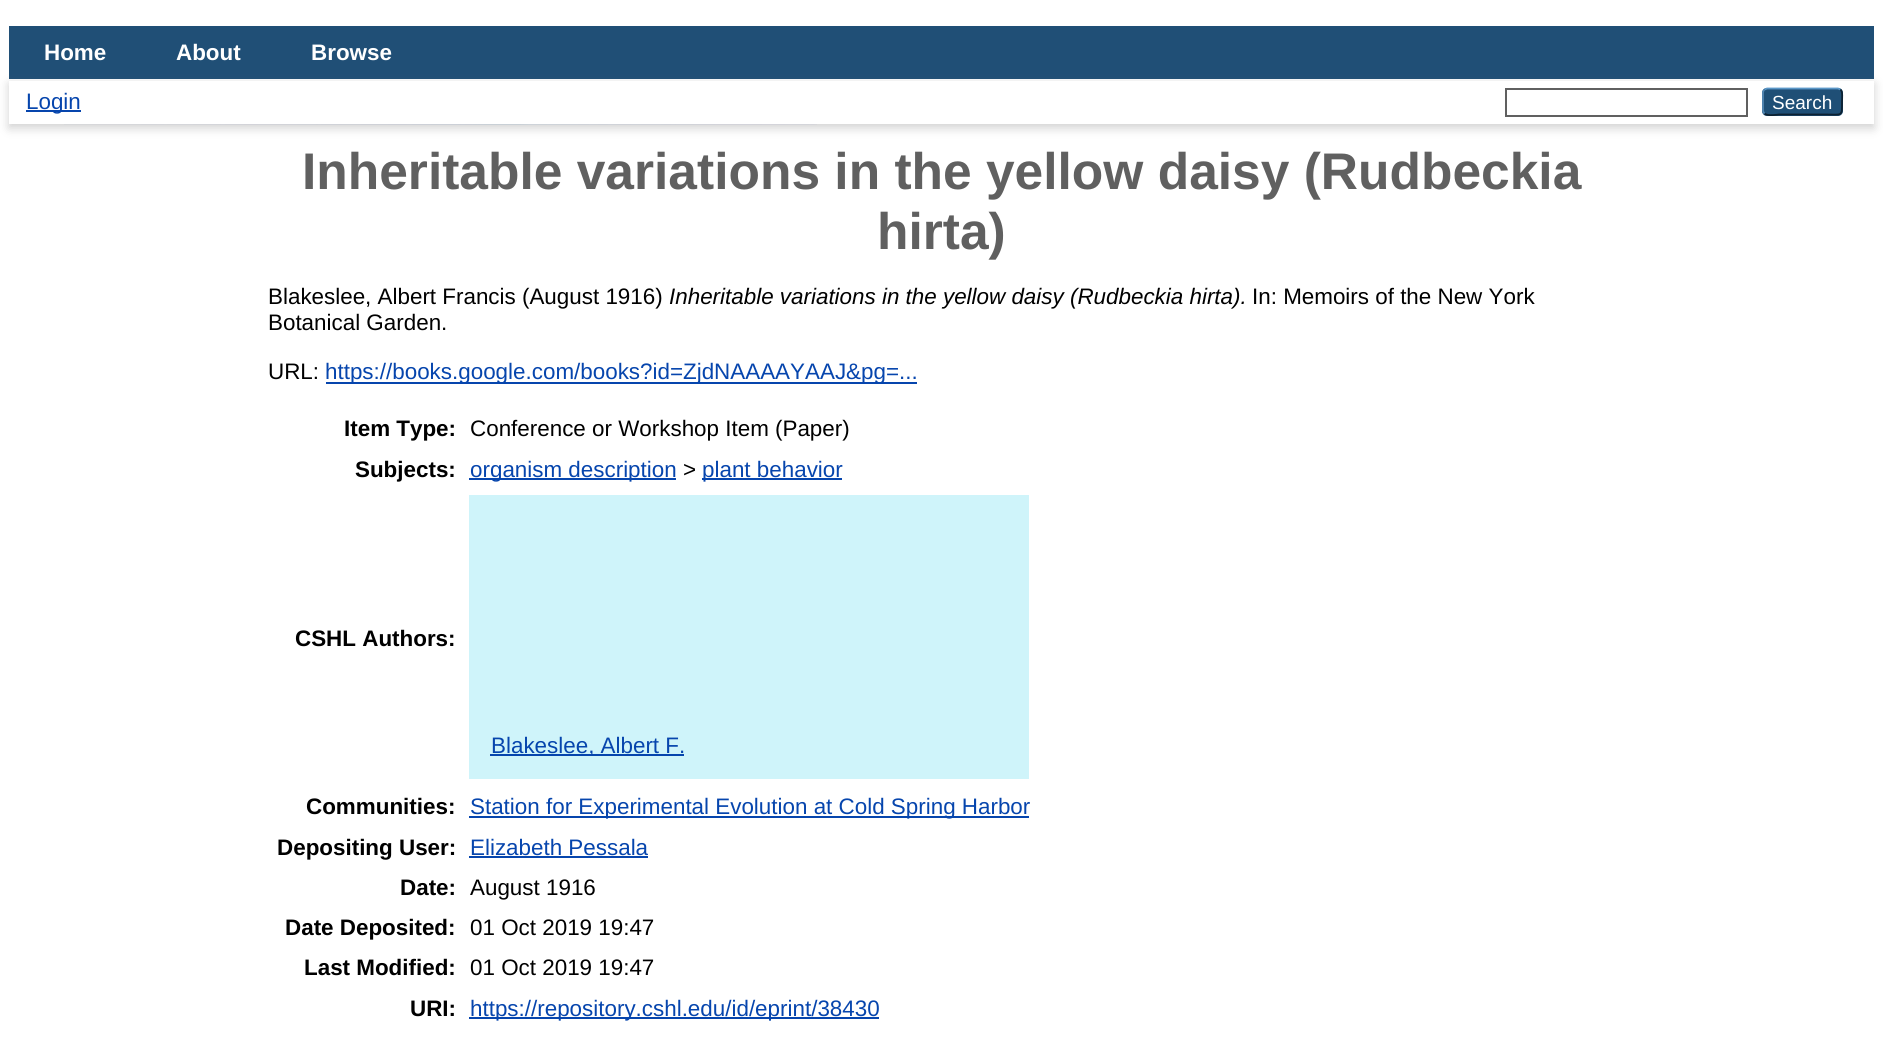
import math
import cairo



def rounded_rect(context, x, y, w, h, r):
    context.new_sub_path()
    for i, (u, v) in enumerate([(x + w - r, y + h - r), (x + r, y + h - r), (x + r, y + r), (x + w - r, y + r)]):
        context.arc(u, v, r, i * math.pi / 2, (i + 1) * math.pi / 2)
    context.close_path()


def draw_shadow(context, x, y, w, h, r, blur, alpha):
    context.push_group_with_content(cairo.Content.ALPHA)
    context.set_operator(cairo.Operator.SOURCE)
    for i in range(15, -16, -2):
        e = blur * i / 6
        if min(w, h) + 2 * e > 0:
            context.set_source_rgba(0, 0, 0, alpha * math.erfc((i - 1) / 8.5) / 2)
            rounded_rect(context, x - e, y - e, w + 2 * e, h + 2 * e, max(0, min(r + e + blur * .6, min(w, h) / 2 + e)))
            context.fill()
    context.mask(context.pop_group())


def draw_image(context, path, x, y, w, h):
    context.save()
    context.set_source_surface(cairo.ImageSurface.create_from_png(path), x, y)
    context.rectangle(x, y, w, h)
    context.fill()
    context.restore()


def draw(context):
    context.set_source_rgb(1, 1, 1)
    context.paint()
    draw_image(context, "images/1.png", 64, 124, 753, 1)
    context.set_source_rgb(32 / 255, 79 / 255, 118 / 255)
    context.rectangle(9, 26, 1865, 53)
    context.fill()
    context.set_source_rgb(100 / 255, 100 / 255, 100 / 255)
    draw_shadow(context, 9, 84, 1865, 44, 0, 5, 0.3)
    context.set_source_rgb(1, 1, 1)
    context.rectangle(9, 81, 1865, 43)
    context.fill()
    context.set_source_rgb(6 / 255, 69 / 255, 173 / 255)
    context.rectangle(26, 110, 55, 2)
    context.fill()
    context.rectangle(1506, 89, 241, 27)
    context.set_source_rgb(96 / 255, 96 / 255, 96 / 255)
    context.stroke()
    context.set_source_rgb(31 / 255, 79 / 255, 118 / 255)
    rounded_rect(context, 1762, 88, 81, 28, 5)
    context.fill()
    context.new_path()
    context.move_to(1764.5, 89.5)
    context.line_to(1767, 88.5)
    context.line_to(1838, 88.5)
    context.line_to(1840.5, 89.5)
    context.set_source_rgb(91 / 255, 151 / 255, 199 / 255)
    context.set_line_width(1.8)
    context.stroke()
    context.new_path()
    context.move_to(1840.5, 89.5)
    context.curve_to(1843, 92, 1842, 98.5, 1842, 101.5)
    context.curve_to(1842, 117, 1842.5, 114.5, 1826, 114.5)
    context.line_to(1779, 114.5)
    context.curve_to(1778.5, 114.5, 1767.5, 116.5, 1764.5, 113.5)
    context.set_source_rgb(13 / 255, 33 / 255, 49 / 255)
    context.stroke()
    context.new_path()
    context.move_to(1764.5, 113.5)
    context.curve_to(1763.5, 112.5, 1763, 111.5, 1763, 110)
    context.line_to(1763, 93)
    context.curve_to(1763, 91.5, 1763.5, 90.5, 1764.5, 89.5)
    context.set_source_rgb(82 / 255, 135 / 255, 179 / 255)
    context.stroke()
    context.set_source_rgb(6 / 255, 69 / 255, 173 / 255)
    context.rectangle(326, 382, 591, 2)
    context.fill()
    context.rectangle(469, 478, 207, 2)
    context.fill()
    context.rectangle(702, 478, 140, 2)
    context.fill()
    context.set_source_rgb(207 / 255, 244 / 255, 250 / 255)
    context.rectangle(469, 495, 560, 284)
    context.fill()
    context.set_source_rgb(6 / 255, 69 / 255, 173 / 255)
    context.rectangle(490, 754, 194, 2)
    context.fill()
    context.rectangle(469, 816, 560, 2)
    context.fill()
    context.rectangle(469, 856, 179, 2)
    context.fill()
    context.rectangle(469, 1017, 410, 2)
    context.fill()
    context.select_font_face("Liberation Sans", cairo.FontSlant.NORMAL, cairo.FontWeight.BOLD)
    context.set_font_size(22.4)
    context.set_source_rgb(1, 1, 1)
    context.move_to(44, 60)
    context.show_text("Home")
    context.move_to(176, 60)
    context.show_text("About")
    context.move_to(311, 60)
    context.show_text("Browse")
    context.select_font_face("Liberation Sans")
    context.set_source_rgb(6 / 255, 69 / 255, 173 / 255)
    context.move_to(26, 109)
    context.show_text("Login")
    context.set_font_size(19)
    context.set_source_rgb(1, 1, 1)
    context.move_to(1772, 109)
    context.show_text("Search")
    context.select_font_face("Liberation Sans", cairo.FontSlant.NORMAL, cairo.FontWeight.BOLD)
    context.set_font_size(51.5)
    context.set_source_rgb(96 / 255, 96 / 255, 96 / 255)
    context.move_to(302, 189)
    context.show_text("Inheritable variations in the yellow daisy (Rudbeckia")
    context.move_to(877, 249)
    context.show_text("hirta)")
    context.select_font_face("Liberation Sans")
    context.set_font_size(22.4)
    context.set_source_rgb(0, 0, 0)
    context.move_to(268, 304)
    context.show_text("Blakeslee, Albert Francis (August 1916)")
    context.select_font_face("Liberation Sans", cairo.FontSlant.ITALIC)
    context.move_to(669, 304)
    context.show_text("Inheritable variations in the yellow daisy (Rudbeckia hirta).")
    context.select_font_face("Liberation Sans")
    context.move_to(1252, 304)
    context.show_text("In: Memoirs of the New York")
    context.move_to(268, 330)
    context.show_text("Botanical Garden.")
    context.move_to(268, 379)
    context.show_text("URL:")
    context.set_source_rgb(6 / 255, 69 / 255, 173 / 255)
    context.move_to(325, 379)
    context.show_text("https://books.google.com/books?id=ZjdNAAAAYAAJ&pg=...")
    context.select_font_face("Liberation Sans", cairo.FontSlant.NORMAL, cairo.FontWeight.BOLD)
    context.set_source_rgb(0, 0, 0)
    context.move_to(344, 436)
    context.show_text("Item Type:")
    context.select_font_face("Liberation Sans")
    context.move_to(470, 436)
    context.show_text("Conference or Workshop Item (Paper)")
    context.select_font_face("Liberation Sans", cairo.FontSlant.NORMAL, cairo.FontWeight.BOLD)
    context.move_to(355, 477)
    context.show_text("Subjects:")
    context.select_font_face("Liberation Sans")
    context.set_source_rgb(6 / 255, 69 / 255, 173 / 255)
    context.move_to(470, 477)
    context.show_text("organism description")
    context.set_source_rgb(0, 0, 0)
    context.move_to(683, 477)
    context.show_text(">")
    context.set_source_rgb(6 / 255, 69 / 255, 173 / 255)
    context.move_to(702, 477)
    context.show_text("plant behavior")
    context.select_font_face("Liberation Sans", cairo.FontSlant.NORMAL, cairo.FontWeight.BOLD)
    context.set_source_rgb(0, 0, 0)
    context.move_to(295, 646)
    context.show_text("CSHL Authors:")
    context.select_font_face("Liberation Sans")
    context.set_source_rgb(6 / 255, 69 / 255, 173 / 255)
    context.move_to(491, 753)
    context.show_text("Blakeslee, Albert F.")
    context.select_font_face("Liberation Sans", cairo.FontSlant.NORMAL, cairo.FontWeight.BOLD)
    context.set_source_rgb(0, 0, 0)
    context.move_to(306, 814)
    context.show_text("Communities:")
    context.select_font_face("Liberation Sans")
    context.set_source_rgb(6 / 255, 69 / 255, 173 / 255)
    context.move_to(470, 814)
    context.show_text("Station for Experimental Evolution at Cold Spring Harbor")
    context.select_font_face("Liberation Sans", cairo.FontSlant.NORMAL, cairo.FontWeight.BOLD)
    context.set_source_rgb(0, 0, 0)
    context.move_to(277, 855)
    context.show_text("Depositing User:")
    context.select_font_face("Liberation Sans")
    context.set_source_rgb(6 / 255, 69 / 255, 173 / 255)
    context.move_to(470, 855)
    context.show_text("Elizabeth Pessala")
    context.select_font_face("Liberation Sans", cairo.FontSlant.NORMAL, cairo.FontWeight.BOLD)
    context.set_source_rgb(0, 0, 0)
    context.move_to(400, 895)
    context.show_text("Date:")
    context.select_font_face("Liberation Sans")
    context.move_to(470, 895)
    context.show_text("August 1916")
    context.select_font_face("Liberation Sans", cairo.FontSlant.NORMAL, cairo.FontWeight.BOLD)
    context.move_to(285, 935)
    context.show_text("Date Deposited:")
    context.select_font_face("Liberation Sans")
    context.move_to(470, 935)
    context.show_text("01 Oct 2019 19:47")
    context.select_font_face("Liberation Sans", cairo.FontSlant.NORMAL, cairo.FontWeight.BOLD)
    context.move_to(304, 975)
    context.show_text("Last Modified:")
    context.select_font_face("Liberation Sans")
    context.move_to(470, 975)
    context.show_text("01 Oct 2019 19:47")
    context.select_font_face("Liberation Sans", cairo.FontSlant.NORMAL, cairo.FontWeight.BOLD)
    context.move_to(410, 1016)
    context.show_text("URI:")
    context.select_font_face("Liberation Sans")
    context.set_source_rgb(6 / 255, 69 / 255, 173 / 255)
    context.move_to(470, 1016)
    context.show_text("https://repository.cshl.edu/id/eprint/38430")


surface = cairo.ImageSurface(cairo.Format.RGB24, 1883, 1060)
context = cairo.Context(surface)
options = cairo.FontOptions()
options.set_hint_metrics(cairo.HintMetrics.OFF)
options.set_hint_style(cairo.HintStyle.NONE)
context.set_font_options(options)
context.set_miter_limit(4)
draw(context)
surface.write_to_png("out.png")
